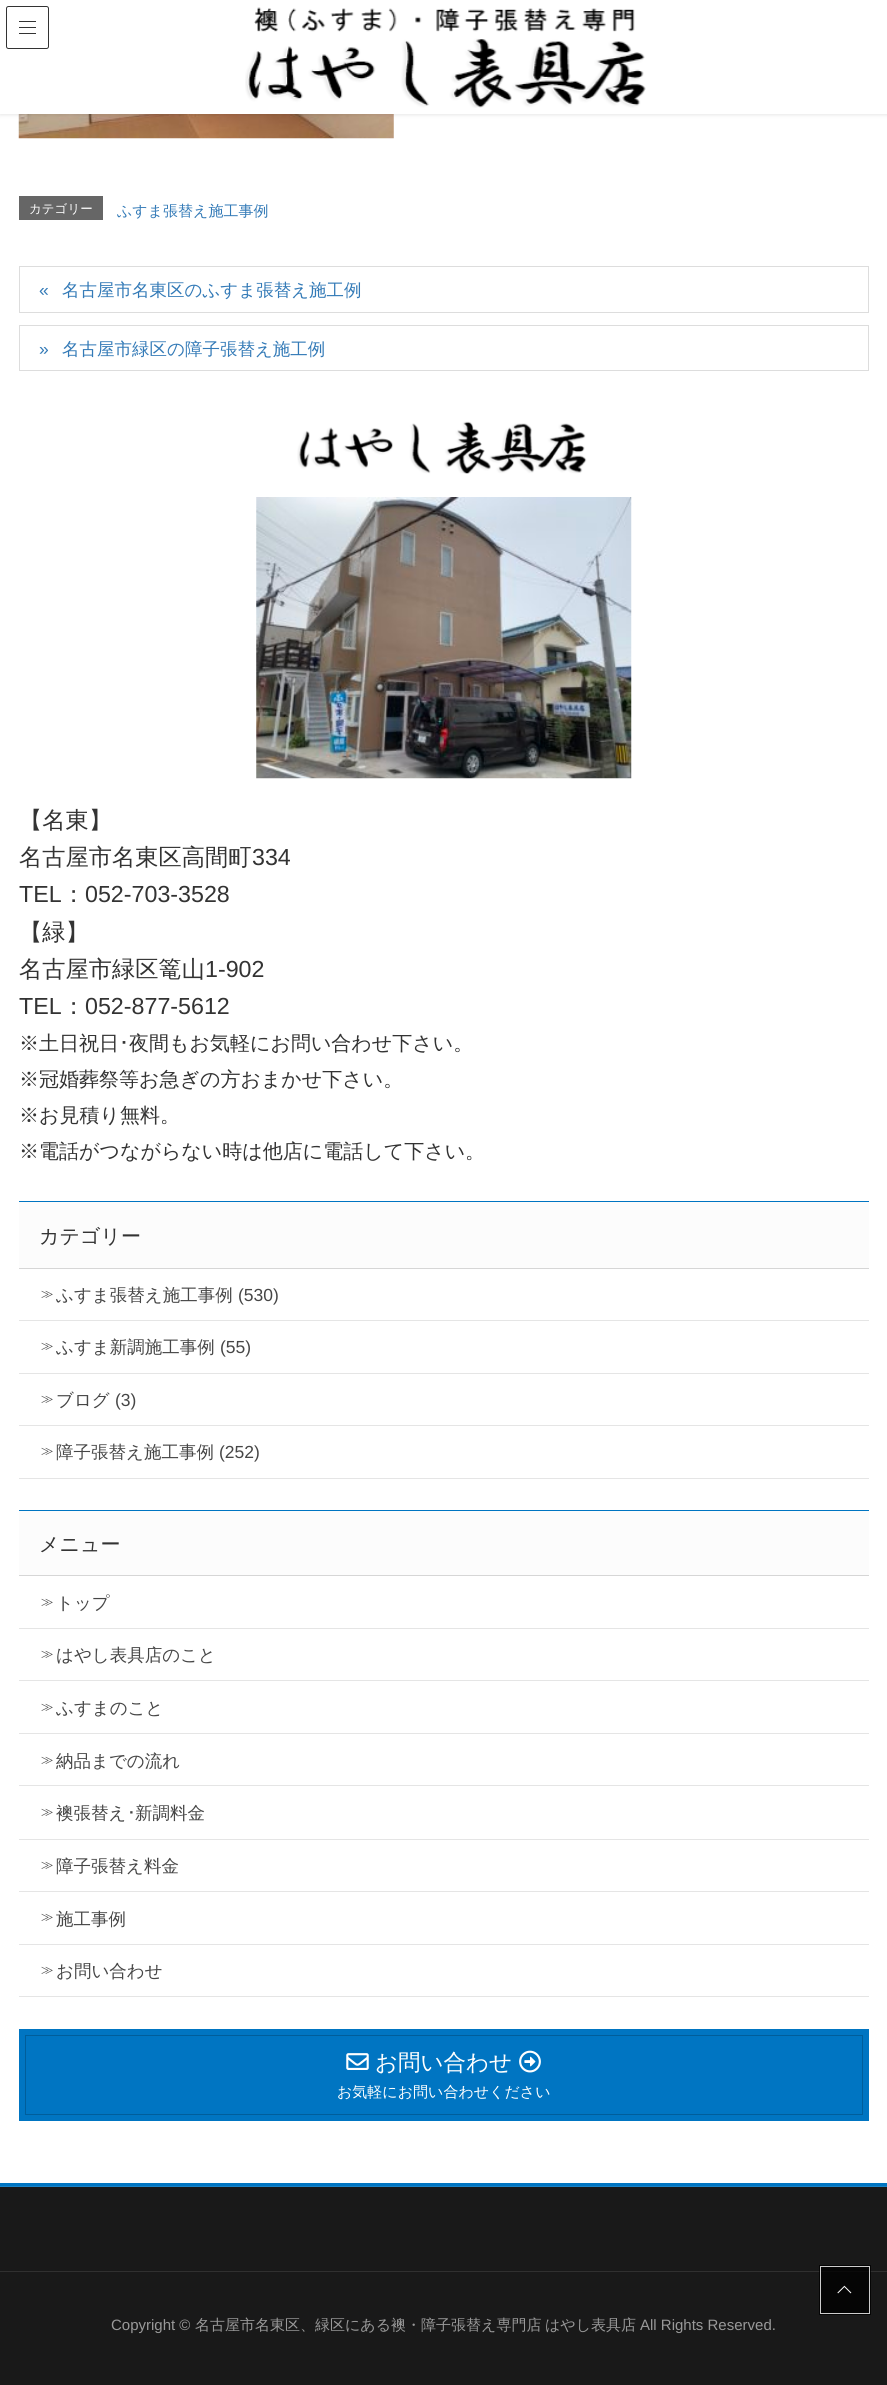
import math
import cairo



def rounded_rect(context, x, y, w, h, r):
    context.new_sub_path()
    for i, (u, v) in enumerate([(x + w - r, y + h - r), (x + r, y + h - r), (x + r, y + r), (x + w - r, y + r)]):
        context.arc(u, v, r, i * math.pi / 2, (i + 1) * math.pi / 2)
    context.close_path()


def draw_shadow(context, x, y, w, h, r, blur, alpha):
    context.push_group_with_content(cairo.Content.ALPHA)
    context.set_operator(cairo.Operator.SOURCE)
    for i in range(15, -16, -2):
        e = blur * i / 6
        if min(w, h) + 2 * e > 0:
            context.set_source_rgba(0, 0, 0, alpha * math.erfc((i - 1) / 8.5) / 2)
            rounded_rect(context, x - e, y - e, w + 2 * e, h + 2 * e, max(0, min(r + e + blur * .6, min(w, h) / 2 + e)))
            context.fill()
    context.mask(context.pop_group())


def draw_image(context, path, x, y, w, h):
    context.save()
    context.set_source_surface(cairo.ImageSurface.create_from_png(path), x, y)
    context.rectangle(x, y, w, h)
    context.fill()
    context.restore()


def draw(context):
    context.set_source_rgb(1, 1, 1)
    context.paint()
    draw_image(context, "images/2.png", 18, 114, 376, 25)
    context.set_source_rgb(0, 0, 0)
    draw_shadow(context, 0, 1, 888, 114, 0, 2, 0.1)
    context.set_source_rgb(1, 1, 1)
    context.rectangle(0, 0, 887, 114)
    context.fill()
    draw_image(context, "images/1.png", 245, 7, 401, 101)
    context.set_source_rgb(51 / 255, 51 / 255, 51 / 255)
    context.rectangle(19, 21, 17, 1)
    context.fill()
    context.rectangle(19, 27, 17, 1)
    context.fill()
    context.rectangle(19, 33, 17, 1)
    context.fill()
    rounded_rect(context, 6.5, 6.5, 42, 42, 2)
    context.set_line_width(1)
    context.stroke()
    context.set_source_rgb(102 / 255, 102 / 255, 102 / 255)
    context.rectangle(19, 196, 84, 24)
    context.fill()
    context.rectangle(19.5, 266.5, 849, 46)
    context.set_source_rgb(221 / 255, 221 / 255, 221 / 255)
    context.stroke()
    context.rectangle(19.5, 325.5, 849, 45)
    context.stroke()
    draw_image(context, "images/3.png", 297, 421, 290, 53)
    draw_image(context, "images/4.png", 256, 497, 376, 282)
    context.set_source_rgb(252 / 255, 252 / 255, 252 / 255)
    context.rectangle(19, 1202, 850, 66)
    context.fill()
    context.set_source_rgb(0, 117 / 255, 194 / 255)
    context.rectangle(19, 1201, 850, 1)
    context.fill()
    context.set_source_rgb(214 / 255, 214 / 255, 214 / 255)
    context.rectangle(19, 1268, 850, 1)
    context.fill()
    context.set_source_rgb(229 / 255, 229 / 255, 229 / 255)
    context.rectangle(19, 1320, 850, 1)
    context.fill()
    context.rectangle(19, 1373, 850, 1)
    context.fill()
    context.rectangle(19, 1425, 850, 1)
    context.fill()
    context.rectangle(19, 1478, 850, 1)
    context.fill()
    context.set_source_rgb(252 / 255, 252 / 255, 252 / 255)
    context.rectangle(19, 1511, 850, 64)
    context.fill()
    context.set_source_rgb(0, 117 / 255, 194 / 255)
    context.rectangle(19, 1510, 850, 1)
    context.fill()
    context.set_source_rgb(214 / 255, 214 / 255, 214 / 255)
    context.rectangle(19, 1575, 850, 1)
    context.fill()
    context.set_source_rgb(229 / 255, 229 / 255, 229 / 255)
    context.rectangle(19, 1628, 850, 1)
    context.fill()
    context.rectangle(19, 1680, 850, 1)
    context.fill()
    context.rectangle(19, 1733, 850, 1)
    context.fill()
    context.rectangle(19, 1785, 850, 1)
    context.fill()
    context.rectangle(19, 1839, 850, 1)
    context.fill()
    context.rectangle(19, 1891, 850, 1)
    context.fill()
    context.rectangle(19, 1944, 850, 1)
    context.fill()
    context.rectangle(19, 1996, 850, 1)
    context.fill()
    context.set_source_rgb(0, 117 / 255, 194 / 255)
    context.rectangle(19, 2029, 850, 92)
    context.fill()
    context.rectangle(25.5, 2035.5, 837, 79)
    context.set_source_rgb(0, 94 / 255, 155 / 255)
    context.stroke()
    draw_image(context, "images/5.png", 346, 2053, 23, 17)
    draw_image(context, "images/6.png", 519, 2050, 22, 23)
    context.set_source_rgb(25 / 255, 25 / 255, 25 / 255)
    context.rectangle(0, 2187, 887, 198)
    context.fill()
    context.set_source_rgb(5 / 255, 5 / 255, 5 / 255)
    context.rectangle(820, 2266, 50, 48)
    context.fill()
    draw_image(context, "images/7.png", 837, 2285, 15, 9)
    context.set_source_rgb(48 / 255, 48 / 255, 48 / 255)
    context.rectangle(0, 2271, 887, 1)
    context.fill()
    context.set_source_rgb(10 / 255, 10 / 255, 10 / 255)
    context.rectangle(820, 2271, 50, 1)
    context.fill()
    context.rectangle(820.5, 2266.5, 49, 47)
    context.set_source_rgba(1, 1, 1, 0.8)
    context.stroke()
    context.rectangle(819.5, 2265.5, 51, 49)
    context.set_source_rgba(0, 0, 0, 0.8)
    context.stroke()
    context.set_source_rgb(0, 117 / 255, 194 / 255)
    context.rectangle(0, 2183, 887, 3)
    context.fill()
    context.set_source_rgb(26 / 255, 131 / 255, 200 / 255)
    context.rectangle(0, 2186, 887, 1)
    context.fill()
    context.select_font_face("WenQuanYi Zen Hei Medium")
    context.set_font_size(12.5)
    context.set_source_rgb(1, 1, 1)
    context.move_to(29, 213)
    context.show_text("カテゴリー")
    context.set_font_size(15)
    context.set_source_rgb(51 / 255, 122 / 255, 183 / 255)
    context.move_to(117, 216)
    context.show_text("ふすま張替え施工事例")
    context.select_font_face("Liberation Sans")
    context.set_font_size(17.5)
    context.move_to(39, 296)
    context.show_text("«")
    context.select_font_face("WenQuanYi Zen Hei Medium")
    context.move_to(62, 296)
    context.show_text("名古屋市名東区のふすま張替え施工例")
    context.select_font_face("Liberation Sans")
    context.move_to(39, 355)
    context.show_text("»")
    context.select_font_face("WenQuanYi Zen Hei Medium")
    context.move_to(62, 355)
    context.show_text("名古屋市緑区の障子張替え施工例")
    context.set_font_size(23.25)
    context.set_source_rgb(51 / 255, 51 / 255, 51 / 255)
    context.move_to(19, 828)
    context.show_text("【名東】")
    context.move_to(19, 865)
    context.show_text("名古屋市名東区高間町")
    context.select_font_face("Liberation Sans")
    context.move_to(252, 865)
    context.show_text("334")
    context.move_to(19, 902)
    context.show_text("TEL")
    context.select_font_face("WenQuanYi Zen Hei Medium")
    context.move_to(62, 902)
    context.show_text("：")
    context.select_font_face("Liberation Sans")
    context.move_to(85, 902)
    context.show_text("052-703-3528")
    context.select_font_face("WenQuanYi Zen Hei Medium")
    context.move_to(19, 940)
    context.show_text("【緑】")
    context.move_to(19, 977)
    context.show_text("名古屋市緑区篭山")
    context.select_font_face("Liberation Sans")
    context.move_to(205, 977)
    context.show_text("1‐902")
    context.move_to(19, 1014)
    context.show_text("TEL")
    context.select_font_face("WenQuanYi Zen Hei Medium")
    context.move_to(62, 1014)
    context.show_text("：")
    context.select_font_face("Liberation Sans")
    context.move_to(85, 1014)
    context.show_text("052-877-5612")
    context.select_font_face("WenQuanYi Zen Hei Medium")
    context.set_font_size(20)
    context.move_to(19, 1050)
    context.show_text("※土日祝日")
    context.select_font_face("IPAPGothic")
    context.move_to(119, 1050)
    context.show_text("･")
    context.select_font_face("WenQuanYi Zen Hei Medium")
    context.move_to(129, 1050)
    context.show_text("夜間もお気軽にお問い合わせ下さい。")
    context.move_to(19, 1086)
    context.show_text("※冠婚葬祭等お急ぎの方おまかせ下さい。")
    context.move_to(19, 1122)
    context.show_text("※お見積り無料。")
    context.move_to(19, 1158)
    context.show_text("※電話がつながらない時は他店に電話して下さい。")
    context.move_to(39, 1243)
    context.show_text("カテゴリー")
    context.set_font_size(12.5)
    context.set_source_rgb(70 / 255, 70 / 255, 70 / 255)
    context.move_to(41, 1298)
    context.show_text("≫")
    context.set_font_size(17.5)
    context.move_to(56, 1301)
    context.show_text("ふすま張替え施工事例")
    context.select_font_face("Liberation Sans")
    context.move_to(238, 1301)
    context.show_text("(530)")
    context.select_font_face("WenQuanYi Zen Hei Medium")
    context.set_font_size(12.5)
    context.move_to(41, 1350)
    context.show_text("≫")
    context.set_font_size(17.5)
    context.move_to(56, 1353)
    context.show_text("ふすま新調施工事例")
    context.select_font_face("Liberation Sans")
    context.move_to(220, 1353)
    context.show_text("(55)")
    context.select_font_face("WenQuanYi Zen Hei Medium")
    context.set_font_size(12.5)
    context.move_to(41, 1403)
    context.show_text("≫")
    context.set_font_size(17.5)
    context.move_to(56, 1406)
    context.show_text("ブログ")
    context.select_font_face("Liberation Sans")
    context.move_to(115, 1406)
    context.show_text("(3)")
    context.select_font_face("WenQuanYi Zen Hei Medium")
    context.set_font_size(12.5)
    context.move_to(41, 1455)
    context.show_text("≫")
    context.set_font_size(17.5)
    context.move_to(56, 1458)
    context.show_text("障子張替え施工事例")
    context.select_font_face("Liberation Sans")
    context.move_to(219, 1458)
    context.show_text("(252)")
    context.select_font_face("WenQuanYi Zen Hei Medium")
    context.set_font_size(20)
    context.set_source_rgb(51 / 255, 51 / 255, 51 / 255)
    context.move_to(39, 1551)
    context.show_text("メニュー")
    context.set_font_size(12.5)
    context.set_source_rgb(70 / 255, 70 / 255, 70 / 255)
    context.move_to(41, 1606)
    context.show_text("≫")
    context.set_font_size(17.5)
    context.move_to(56, 1609)
    context.show_text("トップ")
    context.set_font_size(12.5)
    context.move_to(41, 1658)
    context.show_text("≫")
    context.set_font_size(17.5)
    context.move_to(56, 1661)
    context.show_text("はやし表具店のこと")
    context.set_font_size(12.5)
    context.move_to(41, 1711)
    context.show_text("≫")
    context.set_font_size(17.5)
    context.move_to(56, 1714)
    context.show_text("ふすまのこと")
    context.set_font_size(12.5)
    context.move_to(41, 1764)
    context.show_text("≫")
    context.set_font_size(17.5)
    context.move_to(56, 1767)
    context.show_text("納品までの流れ")
    context.set_font_size(12.5)
    context.move_to(41, 1816)
    context.show_text("≫")
    context.set_font_size(17.5)
    context.move_to(56, 1819)
    context.show_text("襖張替え")
    context.select_font_face("IPAPGothic")
    context.move_to(127, 1819)
    context.show_text("･")
    context.select_font_face("WenQuanYi Zen Hei Medium")
    context.move_to(135, 1819)
    context.show_text("新調料金")
    context.set_font_size(12.5)
    context.move_to(41, 1869)
    context.show_text("≫")
    context.set_font_size(17.5)
    context.move_to(56, 1872)
    context.show_text("障子張替え料金")
    context.set_font_size(12.5)
    context.move_to(41, 1921)
    context.show_text("≫")
    context.set_font_size(17.5)
    context.move_to(56, 1925)
    context.show_text("施工事例")
    context.set_font_size(12.5)
    context.move_to(41, 1974)
    context.show_text("≫")
    context.set_font_size(17.5)
    context.move_to(56, 1977)
    context.show_text("お問い合わせ")
    context.set_font_size(22.5)
    context.set_source_rgb(1, 1, 1)
    context.move_to(375, 2070)
    context.show_text("お問い合わせ")
    context.set_font_size(15)
    context.move_to(337, 2097)
    context.show_text("お気軽にお問い合わせください")
    context.select_font_face("Liberation Sans")
    context.set_source_rgb(153 / 255, 153 / 255, 153 / 255)
    context.move_to(111, 2330)
    context.show_text("Copyright ©")
    context.select_font_face("WenQuanYi Zen Hei Medium")
    context.move_to(195, 2330)
    context.show_text("名古屋市名東区、緑区にある襖・障子張替え専門店")
    context.move_to(545, 2330)
    context.show_text("はやし表具店")
    context.select_font_face("Liberation Sans")
    context.move_to(640, 2330)
    context.show_text("All Rights Reserved.")


surface = cairo.ImageSurface(cairo.Format.RGB24, 887, 2385)
context = cairo.Context(surface)
options = cairo.FontOptions()
options.set_hint_metrics(cairo.HintMetrics.OFF)
options.set_hint_style(cairo.HintStyle.NONE)
context.set_font_options(options)
context.set_miter_limit(4)
draw(context)
surface.write_to_png("out.png")
